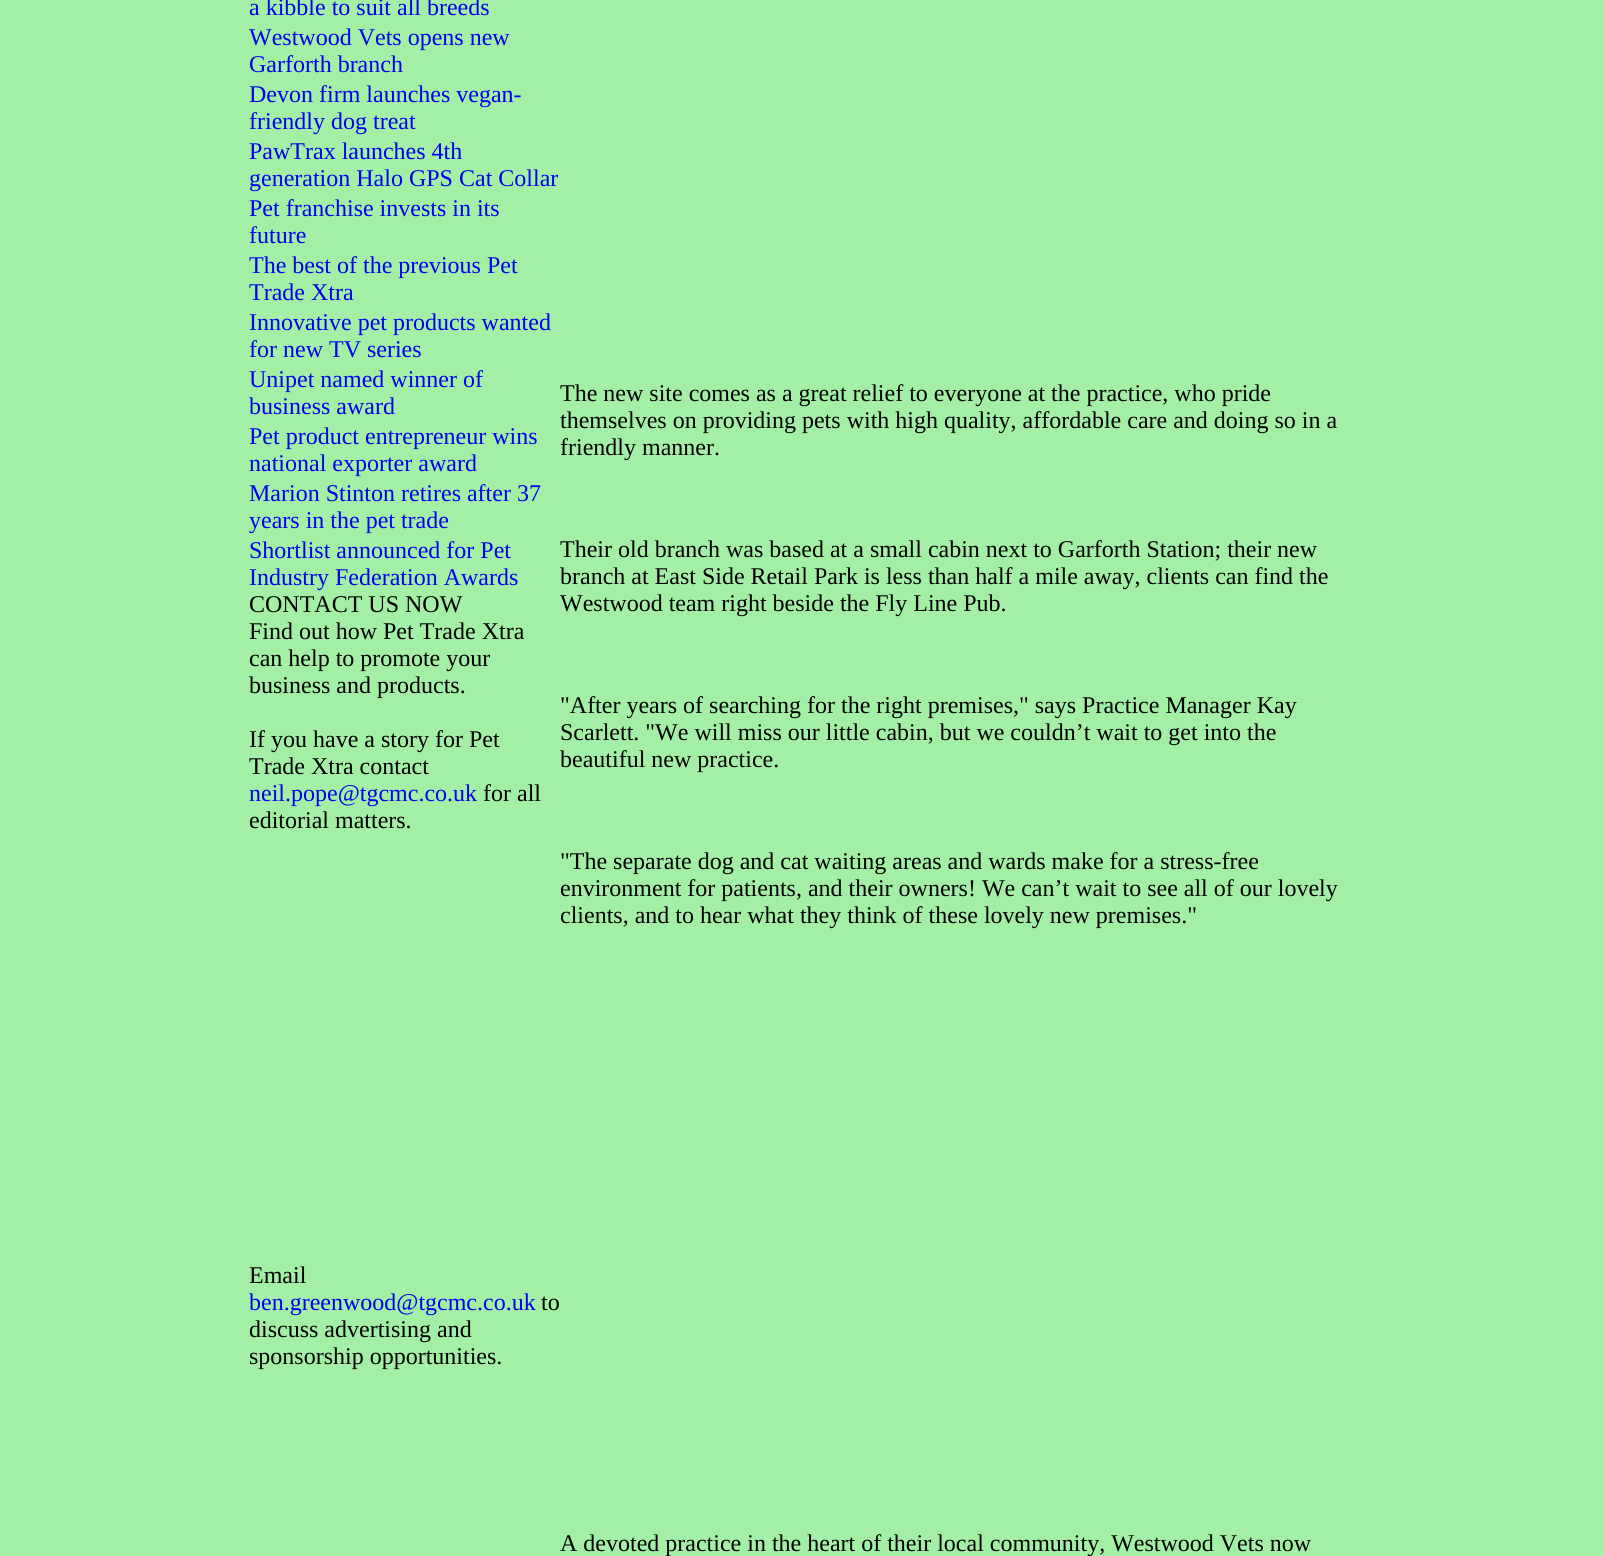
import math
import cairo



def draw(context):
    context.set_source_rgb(163 / 255, 239 / 255, 165 / 255)
    context.paint()
    context.select_font_face("Liberation Serif")
    context.set_font_size(24)
    context.set_source_rgb(0, 0, 238 / 255)
    context.move_to(249, 15)
    context.show_text("a kibble to suit all breeds")
    context.move_to(249, 45)
    context.show_text("Westwood Vets opens new")
    context.move_to(249, 72)
    context.show_text("Garforth branch")
    context.move_to(249, 102)
    context.show_text("Devon firm launches vegan-")
    context.move_to(249, 129)
    context.show_text("friendly dog treat")
    context.move_to(249, 159)
    context.show_text("PawTrax launches 4th")
    context.move_to(249, 186)
    context.show_text("generation Halo GPS Cat Collar")
    context.move_to(249, 216)
    context.show_text("Pet franchise invests in its")
    context.move_to(249, 243)
    context.show_text("future")
    context.move_to(249, 273)
    context.show_text("The best of the previous Pet")
    context.move_to(249, 300)
    context.show_text("Trade Xtra")
    context.move_to(249, 330)
    context.show_text("Innovative pet products wanted")
    context.move_to(249, 357)
    context.show_text("for new TV series")
    context.move_to(249, 387)
    context.show_text("Unipet named winner of")
    context.move_to(249, 414)
    context.show_text("business award")
    context.move_to(249, 444)
    context.show_text("Pet product entrepreneur wins")
    context.move_to(249, 471)
    context.show_text("national exporter award")
    context.move_to(249, 501)
    context.show_text("Marion Stinton retires after 37")
    context.move_to(249, 528)
    context.show_text("years in the pet trade")
    context.move_to(249, 558)
    context.show_text("Shortlist announced for Pet")
    context.move_to(249, 585)
    context.show_text("Industry Federation Awards")
    context.set_source_rgb(0, 0, 0)
    context.move_to(249, 612)
    context.show_text("CONTACT US NOW")
    context.move_to(249, 639)
    context.show_text("Find out how Pet Trade Xtra")
    context.move_to(249, 666)
    context.show_text("can help to promote your")
    context.move_to(249, 693)
    context.show_text("business and products.")
    context.move_to(249, 747)
    context.show_text("If you have a story for Pet")
    context.move_to(249, 774)
    context.show_text("Trade Xtra contact")
    context.set_source_rgb(0, 0, 238 / 255)
    context.move_to(249, 801)
    context.show_text("neil.pope@tgcmc.co.uk")
    context.set_source_rgb(0, 0, 0)
    context.move_to(483, 801)
    context.show_text("for all")
    context.move_to(249, 828)
    context.show_text("editorial matters.")
    context.move_to(249, 1283)
    context.show_text("Email")
    context.set_source_rgb(0, 0, 238 / 255)
    context.move_to(249, 1310)
    context.show_text("ben.greenwood@tgcmc.co.uk")
    context.set_source_rgb(0, 0, 0)
    context.move_to(541, 1310)
    context.show_text("to")
    context.move_to(249, 1337)
    context.show_text("discuss advertising and")
    context.move_to(249, 1364)
    context.show_text("sponsorship opportunities.")
    context.move_to(560, 401)
    context.show_text("The new site comes as a great relief to everyone at the practice, who pride")
    context.move_to(560, 428)
    context.show_text("themselves on providing pets with high quality, affordable care and doing so in a")
    context.move_to(560, 455)
    context.show_text("friendly manner.")
    context.move_to(560, 557)
    context.show_text("Their old branch was based at a small cabin next to Garforth Station; their new")
    context.move_to(560, 584)
    context.show_text("branch at East Side Retail Park is less than half a mile away, clients can find the")
    context.move_to(560, 611)
    context.show_text("Westwood team right beside the Fly Line Pub.")
    context.move_to(560, 713)
    context.show_text("\"After years of searching for the right premises,\" says Practice Manager Kay")
    context.move_to(560, 740)
    context.show_text("Scarlett. \"We will miss our little cabin, but we couldn’t wait to get into the")
    context.move_to(560, 767)
    context.show_text("beautiful new practice.")
    context.move_to(560, 869)
    context.show_text("\"The separate dog and cat waiting areas and wards make for a stress-free")
    context.move_to(560, 896)
    context.show_text("environment for patients, and their owners! We can’t wait to see all of our lovely")
    context.move_to(560, 923)
    context.show_text("clients, and to hear what they think of these lovely new premises.\"")
    context.move_to(560, 1551)
    context.show_text("A devoted practice in the heart of their local community, Westwood Vets now")


surface = cairo.ImageSurface(cairo.Format.RGB24, 1603, 1556)
context = cairo.Context(surface)
options = cairo.FontOptions()
options.set_hint_metrics(cairo.HintMetrics.OFF)
options.set_hint_style(cairo.HintStyle.NONE)
context.set_font_options(options)
context.set_miter_limit(4)
draw(context)
surface.write_to_png("out.png")
